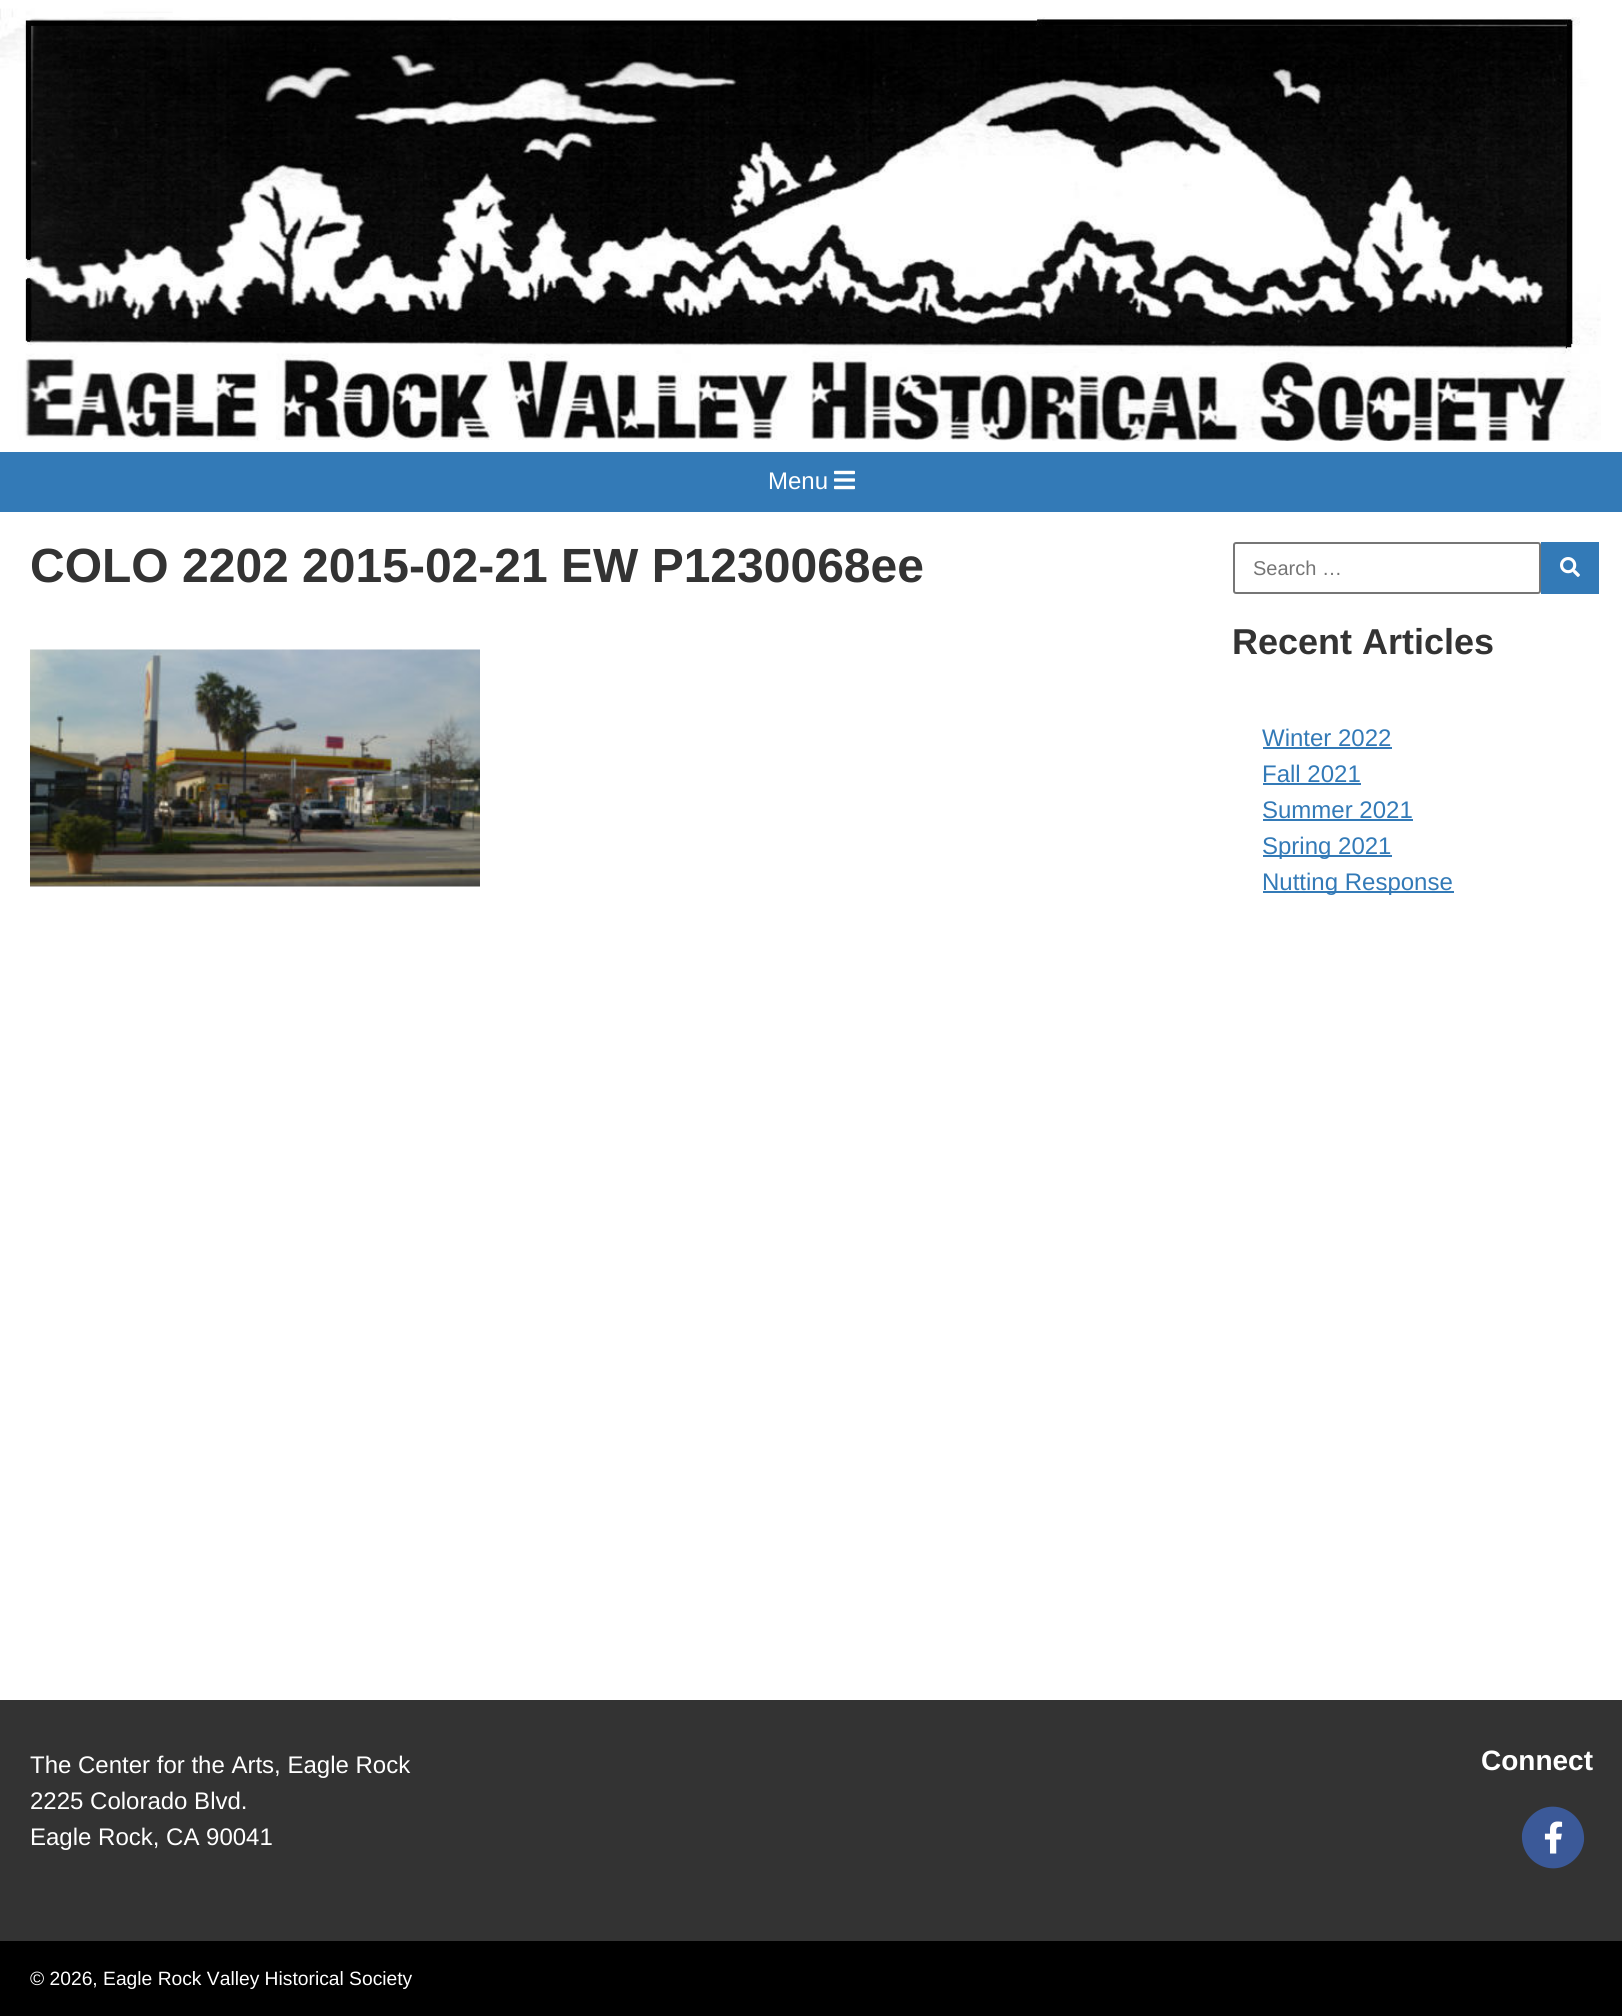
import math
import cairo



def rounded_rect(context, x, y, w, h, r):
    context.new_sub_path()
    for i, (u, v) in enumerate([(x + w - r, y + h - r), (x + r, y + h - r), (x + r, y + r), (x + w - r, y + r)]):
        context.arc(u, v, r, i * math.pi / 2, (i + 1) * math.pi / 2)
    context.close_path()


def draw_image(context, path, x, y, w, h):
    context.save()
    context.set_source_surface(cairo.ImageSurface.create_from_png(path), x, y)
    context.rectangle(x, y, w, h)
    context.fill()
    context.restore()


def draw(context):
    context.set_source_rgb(1, 1, 1)
    context.paint()
    draw_image(context, "images/1.png", 0, 8, 1601, 433)
    context.set_source_rgb(51 / 255, 122 / 255, 183 / 255)
    context.rectangle(0, 452, 1622, 60)
    context.fill()
    draw_image(context, "images/2.png", 834, 470, 21, 20)
    draw_image(context, "images/3.png", 30, 649, 450, 238)
    rounded_rect(context, 1234, 543, 306, 50, 2)
    context.set_source_rgb(118 / 255, 118 / 255, 118 / 255)
    context.stroke()
    context.set_source_rgb(51 / 255, 122 / 255, 183 / 255)
    context.rectangle(1541, 542, 58, 52)
    context.fill()
    draw_image(context, "images/4.png", 1560, 557, 20, 20)
    context.rectangle(1263, 747, 129, 2)
    context.fill()
    context.rectangle(1263, 783, 98, 2)
    context.fill()
    context.rectangle(1263, 819, 150, 2)
    context.fill()
    context.rectangle(1263, 855, 129, 2)
    context.fill()
    context.rectangle(1263, 891, 191, 2)
    context.fill()
    context.set_source_rgb(51 / 255, 51 / 255, 51 / 255)
    context.rectangle(0, 1700, 1622, 241)
    context.fill()
    context.set_source_rgb(59 / 255, 89 / 255, 152 / 255)
    context.new_path()
    context.move_to(1531, 1816)
    context.curve_to(1552, 1795, 1586, 1812, 1584, 1841)
    context.curve_to(1583, 1848, 1580, 1854, 1575, 1859)
    context.curve_to(1554, 1880, 1520, 1863, 1522, 1834)
    context.curve_to(1523, 1827, 1526, 1821, 1531, 1816)
    context.close_path()
    context.fill()
    draw_image(context, "images/5.png", 1544, 1821, 19, 33)
    context.set_source_rgb(0, 0, 0)
    context.rectangle(0, 1941, 1622, 75)
    context.fill()
    context.select_font_face("Liberation Sans")
    context.set_font_size(24)
    context.set_source_rgb(1, 1, 1)
    context.move_to(768, 489)
    context.show_text("Menu")
    context.select_font_face("Liberation Sans", cairo.FontSlant.NORMAL, cairo.FontWeight.BOLD)
    context.set_font_size(48)
    context.set_source_rgb(51 / 255, 51 / 255, 51 / 255)
    context.move_to(30, 582)
    context.show_text("COLO 2202 2015-02-21 EW P1230068ee")
    context.select_font_face("Liberation Sans")
    context.set_font_size(20)
    context.set_source_rgb(117 / 255, 117 / 255, 117 / 255)
    context.move_to(1253, 575)
    context.show_text("Search …")
    context.select_font_face("Liberation Sans", cairo.FontSlant.NORMAL, cairo.FontWeight.BOLD)
    context.set_font_size(36)
    context.set_source_rgb(51 / 255, 51 / 255, 51 / 255)
    context.move_to(1232, 654)
    context.show_text("Recent Articles")
    context.select_font_face("Liberation Sans")
    context.set_font_size(24)
    context.set_source_rgb(51 / 255, 122 / 255, 183 / 255)
    context.move_to(1262, 746)
    context.show_text("Winter 2022")
    context.move_to(1262, 782)
    context.show_text("Fall 2021")
    context.move_to(1262, 818)
    context.show_text("Summer 2021")
    context.move_to(1262, 854)
    context.show_text("Spring 2021")
    context.move_to(1262, 890)
    context.show_text("Nutting Response")
    context.set_source_rgb(1, 1, 1)
    context.move_to(30, 1773)
    context.show_text("The Center for the Arts, Eagle Rock")
    context.move_to(30, 1809)
    context.show_text("2225 Colorado Blvd.")
    context.move_to(30, 1845)
    context.show_text("Eagle Rock, CA 90041")
    context.select_font_face("Liberation Sans", cairo.FontSlant.NORMAL, cairo.FontWeight.BOLD)
    context.set_font_size(28)
    context.move_to(1481, 1770)
    context.show_text("Connect")
    context.select_font_face("Liberation Sans")
    context.set_font_size(19.25)
    context.move_to(30, 1985)
    context.show_text("© 2026, Eagle Rock Valley Historical Society")


surface = cairo.ImageSurface(cairo.Format.RGB24, 1622, 2016)
context = cairo.Context(surface)
options = cairo.FontOptions()
options.set_hint_metrics(cairo.HintMetrics.OFF)
options.set_hint_style(cairo.HintStyle.NONE)
context.set_font_options(options)
context.set_miter_limit(4)
draw(context)
surface.write_to_png("out.png")
